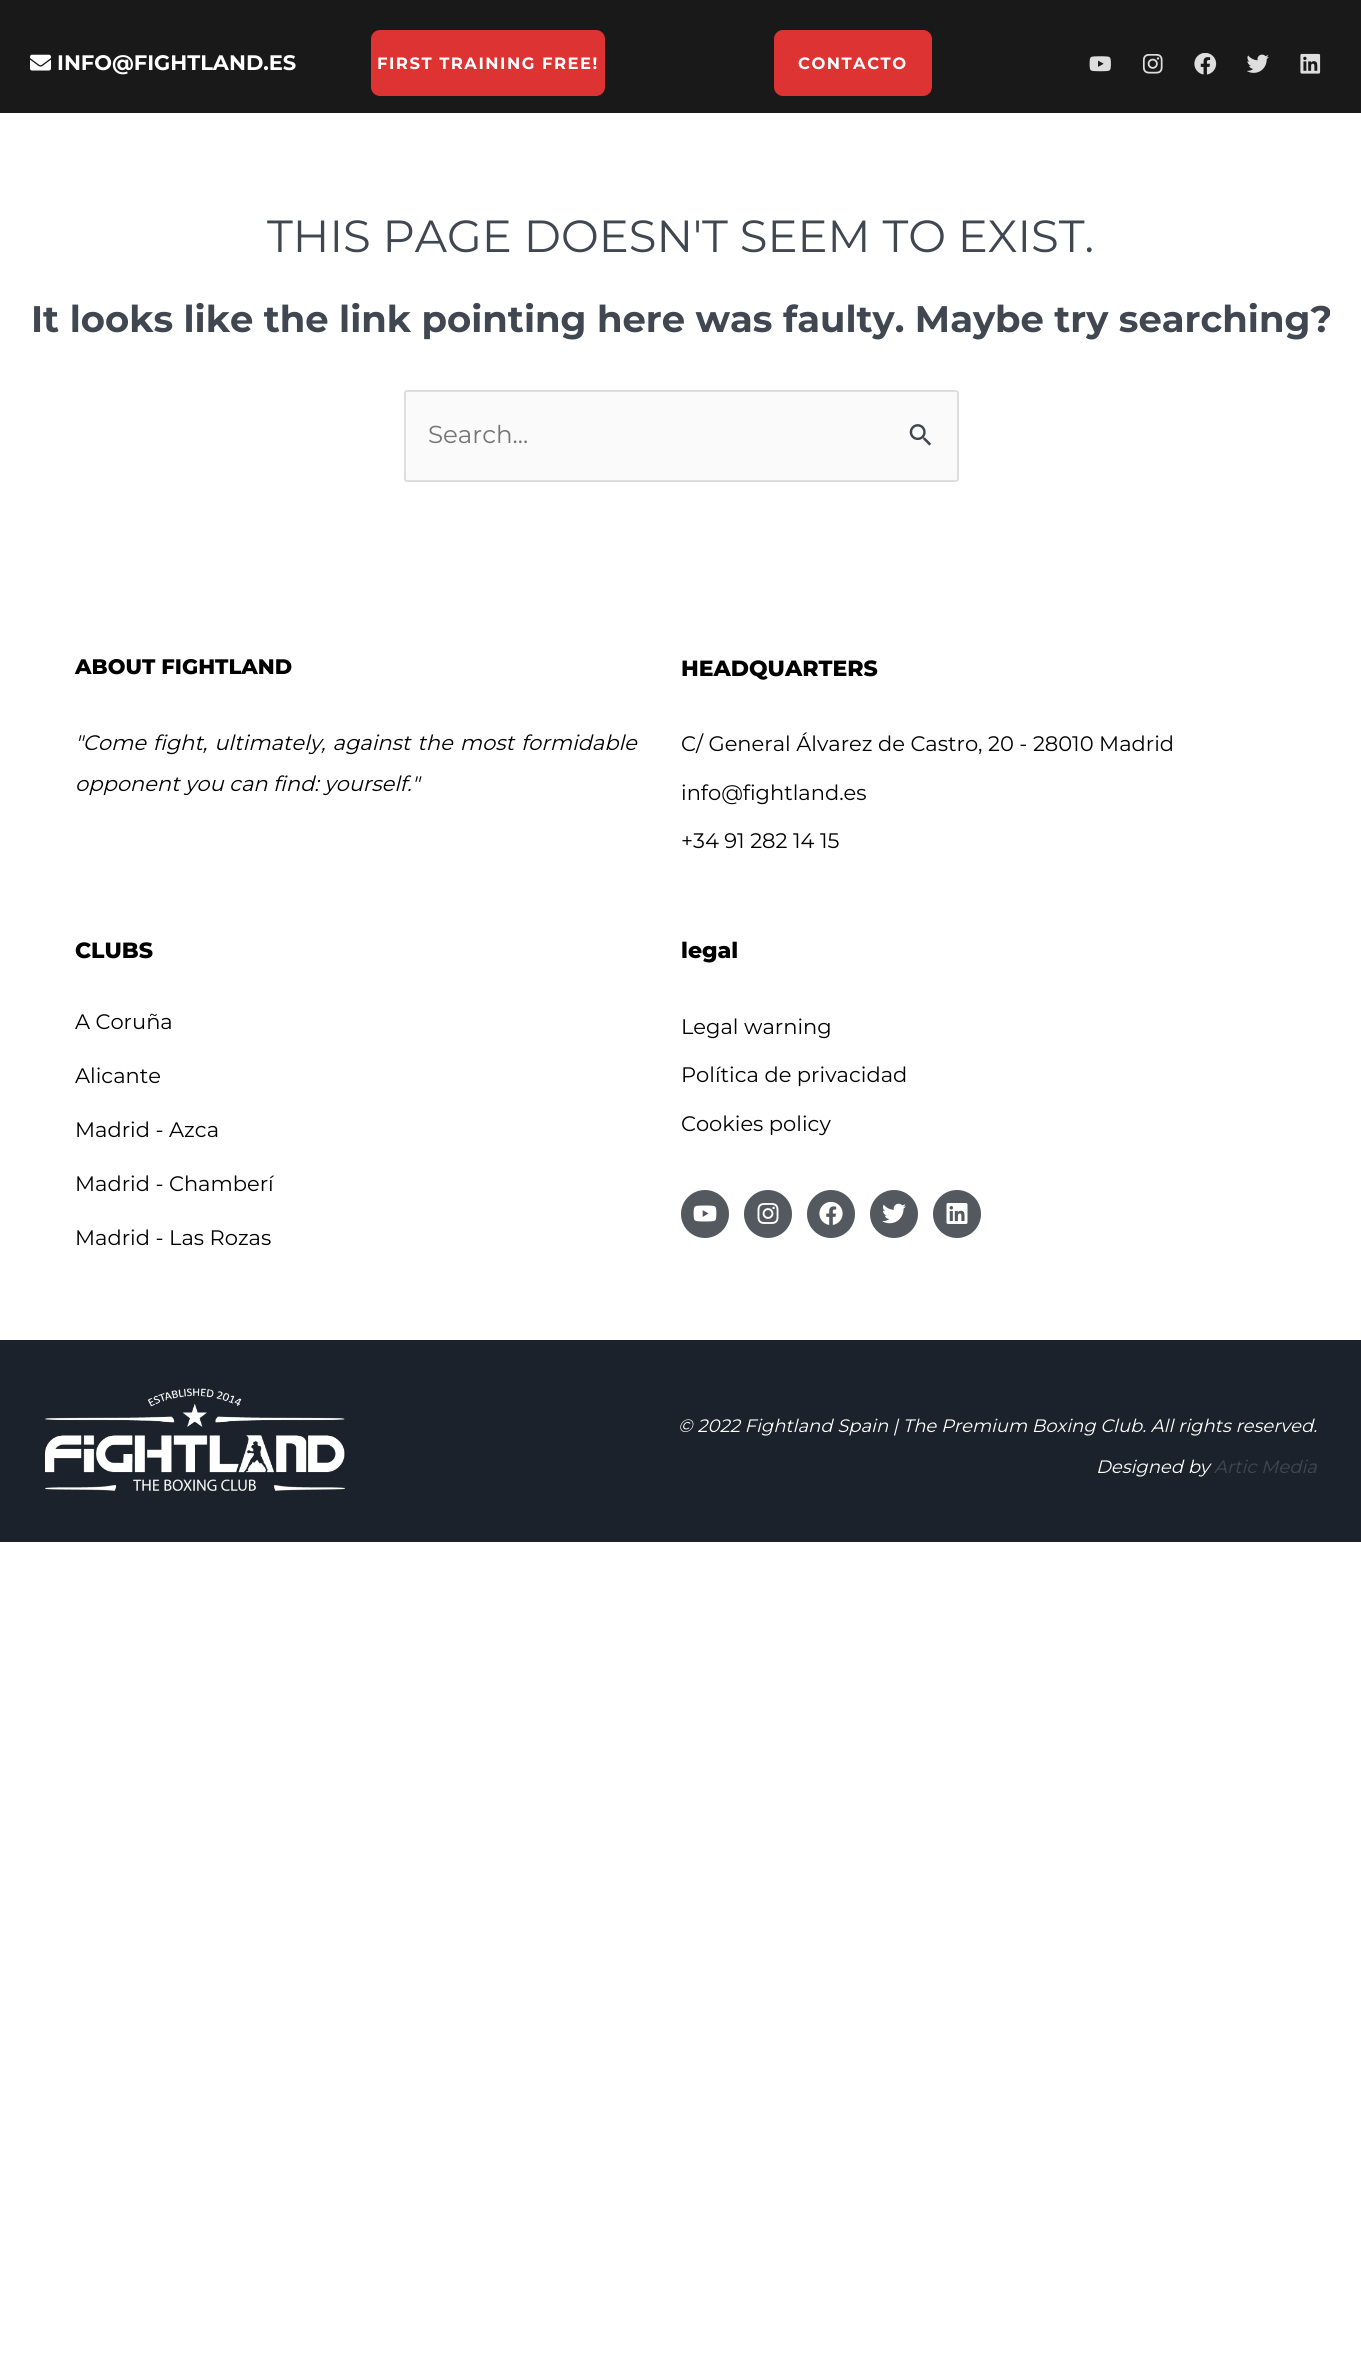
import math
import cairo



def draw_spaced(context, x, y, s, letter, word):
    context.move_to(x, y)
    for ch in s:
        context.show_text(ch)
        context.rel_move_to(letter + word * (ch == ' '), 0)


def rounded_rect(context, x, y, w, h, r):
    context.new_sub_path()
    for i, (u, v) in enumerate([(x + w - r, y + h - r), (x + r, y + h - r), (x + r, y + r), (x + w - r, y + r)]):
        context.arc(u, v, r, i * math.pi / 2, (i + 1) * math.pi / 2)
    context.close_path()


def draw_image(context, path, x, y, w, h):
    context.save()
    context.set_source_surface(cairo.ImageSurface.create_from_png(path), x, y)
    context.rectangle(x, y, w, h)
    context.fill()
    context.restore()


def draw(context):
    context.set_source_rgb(1, 1, 1)
    context.paint()
    context.set_source_rgb(25 / 255, 25 / 255, 25 / 255)
    context.rectangle(0, 0, 1361, 113)
    context.fill()
    draw_image(context, "images/1.png", 30, 54, 21, 17)
    context.set_source_rgb(221 / 255, 51 / 255, 51 / 255)
    rounded_rect(context, 371, 30, 234, 66, 9)
    context.fill()
    rounded_rect(context, 774, 30, 158, 66, 9)
    context.fill()
    draw_image(context, "images/2.png", 1089, 56, 22, 16)
    draw_image(context, "images/3.png", 1142, 54, 21, 20)
    draw_image(context, "images/4.png", 1194, 53, 23, 22)
    draw_image(context, "images/5.png", 1247, 54, 22, 19)
    draw_image(context, "images/6.png", 1300, 53, 21, 21)
    context.set_source_rgb(250 / 255, 250 / 255, 250 / 255)
    rounded_rect(context, 405, 391, 553, 90, 2)
    context.fill_preserve()
    context.set_source_rgb(221 / 255, 221 / 255, 221 / 255)
    context.stroke()
    draw_image(context, "images/7.png", 909, 424, 23, 22)
    context.set_source_rgb(84 / 255, 89 / 255, 95 / 255)
    context.arc(705, 1214, 24, 0, 2 * math.pi)
    context.fill()
    draw_image(context, "images/8.png", 693, 1205, 24, 17)
    context.arc(768, 1214, 24, 0, 2 * math.pi)
    context.fill()
    draw_image(context, "images/9.png", 757, 1203, 22, 21)
    context.arc(831, 1214, 24, 0, 2 * math.pi)
    context.fill()
    draw_image(context, "images/10.png", 819, 1202, 24, 23)
    context.arc(894, 1214, 24, 0, 2 * math.pi)
    context.fill()
    draw_image(context, "images/11.png", 882, 1203, 24, 21)
    context.arc(957, 1214, 24, 0, 2 * math.pi)
    context.fill()
    draw_image(context, "images/12.png", 946, 1203, 22, 21)
    context.set_source_rgb(28 / 255, 34 / 255, 43 / 255)
    context.rectangle(0, 1340, 1361, 202)
    context.fill()
    draw_image(context, "images/13.png", 45, 1388, 300, 103)
    context.select_font_face("Montserrat", cairo.FontSlant.NORMAL, cairo.FontWeight.BOLD)
    context.set_font_size(21)
    context.set_source_rgb(1, 1, 1)
    context.move_to(57, 70)
    context.show_text("INFO@FIGHTLAND.ES")
    context.set_font_size(16.4)
    draw_spaced(context, 377, 69, "FIRST TRAINING FREE!", 1.5, 0)
    draw_spaced(context, 798, 69, "CONTACTO", 1.5, 0)
    context.select_font_face("Montserrat")
    context.set_font_size(45)
    context.set_source_rgb(64 / 255, 71 / 255, 81 / 255)
    context.move_to(267, 252)
    context.show_text("THIS PAGE DOESN'T SEEM TO EXIST.")
    context.select_font_face("Montserrat", cairo.FontSlant.NORMAL, cairo.FontWeight.BOLD)
    context.set_font_size(36.95)
    context.move_to(31, 332)
    context.show_text("It looks like the link pointing here was faulty. Maybe try searching?")
    context.select_font_face("Montserrat")
    context.set_font_size(24.5)
    context.set_source_rgb(117 / 255, 117 / 255, 117 / 255)
    context.move_to(428, 443)
    context.show_text("Search...")
    context.select_font_face("Montserrat ExtraBold")
    context.set_font_size(21)
    context.set_source_rgb(0, 0, 0)
    context.move_to(75, 674)
    context.show_text("ABOUT FIGHTLAND")
    context.select_font_face("Montserrat", cairo.FontSlant.ITALIC)
    draw_spaced(context, 75, 750, "\"Come fight, ultimately, against the most formidable", 0, 1.5)
    context.move_to(75, 791)
    context.show_text("opponent you can find: yourself.\"")
    context.select_font_face("Montserrat ExtraBold")
    context.set_font_size(22)
    context.move_to(681, 676)
    context.show_text("HEADQUARTERS")
    context.select_font_face("Montserrat")
    context.set_font_size(21)
    context.move_to(681, 751)
    context.show_text("C/ General Álvarez de Castro, 20 - 28010 Madrid")
    context.move_to(681, 800)
    context.show_text("info@fightland.es")
    context.move_to(681, 848)
    context.show_text("+34 91 282 14 15")
    context.select_font_face("Montserrat ExtraBold")
    context.set_font_size(22)
    context.move_to(75, 958)
    context.show_text("CLUBS")
    context.select_font_face("Montserrat")
    context.set_font_size(21)
    context.move_to(75, 1029)
    context.show_text("A Coruña")
    context.move_to(75, 1083)
    context.show_text("Alicante")
    context.move_to(75, 1137)
    context.show_text("Madrid - Azca")
    context.move_to(75, 1191)
    context.show_text("Madrid - Chamberí")
    context.move_to(75, 1245)
    context.show_text("Madrid - Las Rozas")
    context.select_font_face("Montserrat ExtraBold")
    context.set_font_size(22)
    context.move_to(681, 958)
    context.show_text("legal")
    context.select_font_face("Montserrat")
    context.set_font_size(21)
    context.move_to(681, 1034)
    context.show_text("Legal warning")
    context.move_to(681, 1082)
    context.show_text("Política de privacidad")
    context.move_to(681, 1131)
    context.show_text("Cookies policy")
    context.select_font_face("Montserrat", cairo.FontSlant.ITALIC)
    context.set_font_size(18)
    context.set_source_rgb(1, 1, 1)
    context.move_to(678, 1432)
    context.show_text("© 2022 Fightland Spain | The Premium Boxing Club. All rights reserved.")
    context.move_to(1096, 1473)
    context.show_text("Designed by")
    context.set_source_rgb(64 / 255, 71 / 255, 81 / 255)
    context.move_to(1214, 1473)
    context.show_text("Artic Media")


surface = cairo.ImageSurface(cairo.Format.RGB24, 1361, 2359)
context = cairo.Context(surface)
options = cairo.FontOptions()
options.set_hint_metrics(cairo.HintMetrics.OFF)
options.set_hint_style(cairo.HintStyle.NONE)
context.set_font_options(options)
context.set_miter_limit(4)
draw(context)
surface.write_to_png("out.png")
